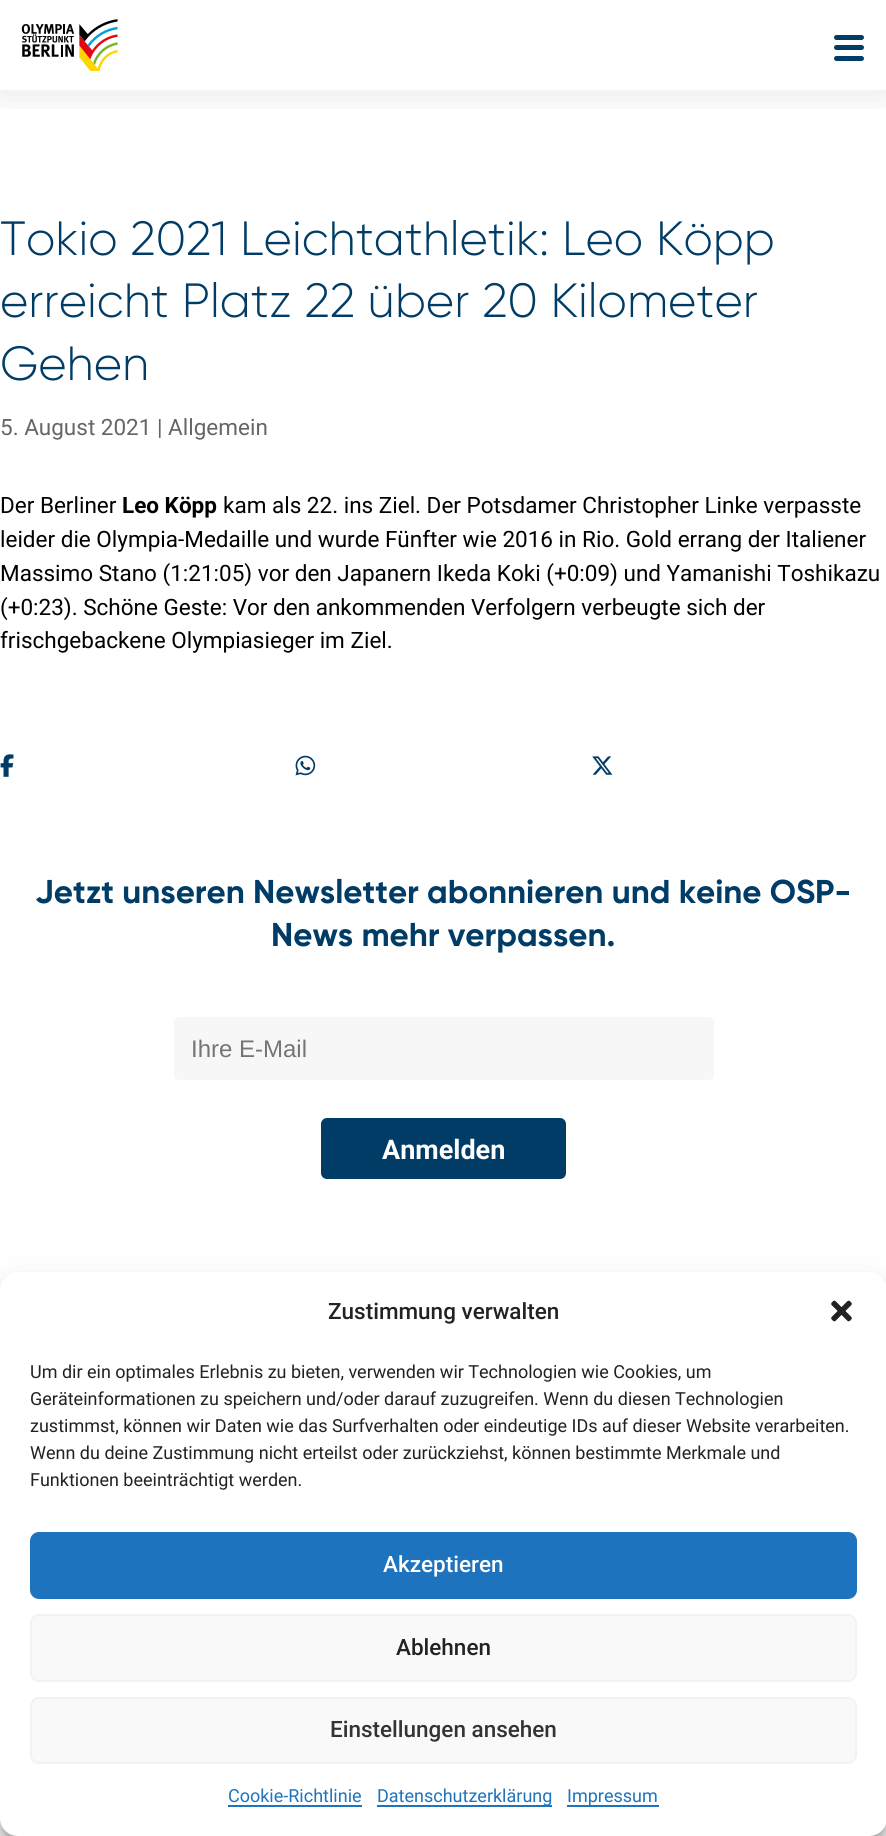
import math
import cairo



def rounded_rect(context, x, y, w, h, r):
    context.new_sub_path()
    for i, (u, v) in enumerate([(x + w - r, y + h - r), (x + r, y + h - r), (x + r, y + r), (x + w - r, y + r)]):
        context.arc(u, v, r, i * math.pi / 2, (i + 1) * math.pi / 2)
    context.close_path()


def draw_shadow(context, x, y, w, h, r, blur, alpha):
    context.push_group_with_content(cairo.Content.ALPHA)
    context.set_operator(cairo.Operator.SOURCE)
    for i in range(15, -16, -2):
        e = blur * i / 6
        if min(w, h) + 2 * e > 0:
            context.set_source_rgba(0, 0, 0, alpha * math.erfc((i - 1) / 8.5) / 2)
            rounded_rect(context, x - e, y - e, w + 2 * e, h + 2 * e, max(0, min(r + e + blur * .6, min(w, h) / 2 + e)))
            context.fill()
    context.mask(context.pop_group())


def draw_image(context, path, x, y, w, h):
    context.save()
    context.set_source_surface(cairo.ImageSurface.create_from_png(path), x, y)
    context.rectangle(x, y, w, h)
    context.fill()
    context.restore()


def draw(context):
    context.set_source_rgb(1, 1, 1)
    context.paint()
    context.save()
    context.rectangle(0, 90, 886, 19)
    context.clip()
    context.set_source_rgb(0, 0, 0)
    draw_shadow(context, 0, 3, 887, 90, 0, 19, 0.1)
    context.restore()
    draw_image(context, "images/1.png", 21, 19, 97, 52)
    context.set_source_rgb(0, 60 / 255, 102 / 255)
    rounded_rect(context, 834, 56, 30, 5, 2.5)
    context.fill()
    rounded_rect(context, 834, 35, 30, 5, 2.5)
    context.fill()
    rounded_rect(context, 834, 45, 30, 5, 2.5)
    context.fill()
    draw_image(context, "images/2.png", 0, 754, 14, 23)
    draw_image(context, "images/3.png", 295, 755, 21, 21)
    draw_image(context, "images/4.png", 592, 756, 21, 19)
    context.set_source_rgb(247 / 255, 247 / 255, 247 / 255)
    rounded_rect(context, 174, 1017, 540, 63, 5)
    context.fill()
    context.set_source_rgb(0, 60 / 255, 102 / 255)
    rounded_rect(context, 321, 1118, 245, 61, 6)
    context.fill()
    context.set_source_rgb(0, 0, 0)
    draw_shadow(context, 0, 1281, 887, 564, 18, 4.5, 0.23)
    draw_shadow(context, 0, 1287, 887, 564, 18, 15, 0.19)
    context.set_source_rgb(1, 1, 1)
    rounded_rect(context, 0, 1272, 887, 564, 18)
    context.fill()
    draw_image(context, "images/5.png", 831, 1300, 21, 22)
    context.set_source_rgb(30 / 255, 115 / 255, 190 / 255)
    rounded_rect(context, 31, 1533, 825, 65, 8)
    context.fill_preserve()
    context.stroke()
    context.set_source_rgb(249 / 255, 249 / 255, 249 / 255)
    rounded_rect(context, 31, 1615, 825, 66, 8)
    context.fill_preserve()
    context.set_source_rgb(242 / 255, 242 / 255, 242 / 255)
    context.stroke()
    context.set_source_rgb(249 / 255, 249 / 255, 249 / 255)
    rounded_rect(context, 31, 1698, 825, 65, 8)
    context.fill_preserve()
    context.set_source_rgb(242 / 255, 242 / 255, 242 / 255)
    context.stroke()
    context.set_source_rgb(30 / 255, 115 / 255, 190 / 255)
    context.rectangle(228, 1805, 134, 2)
    context.fill()
    context.rectangle(377, 1805, 175, 2)
    context.fill()
    context.rectangle(567, 1805, 92, 2)
    context.fill()
    context.select_font_face("Gilroy Light")
    context.set_font_size(48)
    context.set_source_rgb(0, 60 / 255, 102 / 255)
    context.move_to(0, 255)
    context.show_text("Tokio 2021 Leichtathletik: Leo Köpp")
    context.move_to(0, 317)
    context.show_text("erreicht Platz 22 über 20 Kilometer")
    context.move_to(0, 380)
    context.show_text("Gehen")
    context.select_font_face("Roboto")
    context.set_font_size(22.5)
    context.set_source_rgb(102 / 255, 102 / 255, 102 / 255)
    context.move_to(0, 435)
    context.show_text("5. August 2021 | Allgemein")
    context.set_source_rgb(0, 0, 0)
    context.move_to(0, 513)
    context.show_text("Der Berliner")
    context.select_font_face("Roboto", cairo.FontSlant.NORMAL, cairo.FontWeight.BOLD)
    context.move_to(122, 513)
    context.show_text("Leo Köpp")
    context.select_font_face("Roboto")
    context.move_to(223, 513)
    context.show_text("kam als 22. ins Ziel. Der Potsdamer Christopher Linke verpasste")
    context.move_to(0, 547)
    context.show_text("leider die Olympia-Medaille und wurde Fünfter wie 2016 in Rio. Gold errang der Italiener")
    context.move_to(0, 581)
    context.show_text("Massimo Stano (1:21:05) vor den Japanern Ikeda Koki (+0:09) und Yamanishi Toshikazu")
    context.move_to(0, 615)
    context.show_text("(+0:23). Schöne Geste: Vor den ankommenden Verfolgern verbeugte sich der")
    context.move_to(0, 648)
    context.show_text("frischgebackene Olympiasieger im Ziel.")
    context.select_font_face("Gilroy", cairo.FontSlant.NORMAL, cairo.FontWeight.BOLD)
    context.set_font_size(33)
    context.set_source_rgb(0, 60 / 255, 102 / 255)
    context.move_to(35, 903)
    context.show_text("Jetzt unseren Newsletter abonnieren und keine OSP-")
    context.move_to(271, 946)
    context.show_text("News mehr verpassen.")
    context.select_font_face("Liberation Sans")
    context.set_font_size(24)
    context.set_source_rgb(117 / 255, 117 / 255, 117 / 255)
    context.move_to(191, 1057)
    context.show_text("Ihre E-Mail")
    context.select_font_face("Roboto", cairo.FontSlant.NORMAL, cairo.FontWeight.BOLD)
    context.set_font_size(27)
    context.set_source_rgb(1, 1, 1)
    context.move_to(382, 1159)
    context.show_text("Anmelden")
    context.select_font_face("Roboto Medium")
    context.set_font_size(22.5)
    context.set_source_rgb(34 / 255, 34 / 255, 34 / 255)
    context.move_to(328, 1319)
    context.show_text("Zustimmung verwalten")
    context.select_font_face("Roboto")
    context.set_font_size(18)
    context.move_to(30, 1378)
    context.show_text("Um dir ein optimales Erlebnis zu bieten, verwenden wir Technologien wie Cookies, um")
    context.move_to(30, 1405)
    context.show_text("Geräteinformationen zu speichern und/oder darauf zuzugreifen. Wenn du diesen Technologien")
    context.move_to(30, 1432)
    context.show_text("zustimmst, können wir Daten wie das Surfverhalten oder eindeutige IDs auf dieser Website verarbeiten.")
    context.move_to(30, 1459)
    context.show_text("Wenn du deine Zustimmung nicht erteilst oder zurückziehst, können bestimmte Merkmale und")
    context.move_to(30, 1486)
    context.show_text("Funktionen beeinträchtigt werden.")
    context.select_font_face("Roboto Medium")
    context.set_font_size(22.5)
    context.set_source_rgb(1, 1, 1)
    context.move_to(383, 1572)
    context.show_text("Akzeptieren")
    context.set_source_rgb(34 / 255, 34 / 255, 34 / 255)
    context.move_to(396, 1655)
    context.show_text("Ablehnen")
    context.set_source_rgb(51 / 255, 51 / 255, 51 / 255)
    context.move_to(330, 1737)
    context.show_text("Einstellungen ansehen")
    context.select_font_face("Roboto")
    context.set_font_size(18)
    context.set_source_rgb(30 / 255, 115 / 255, 190 / 255)
    context.move_to(228, 1802)
    context.show_text("Cookie-Richtlinie")
    context.move_to(377, 1802)
    context.show_text("Datenschutzerklärung")
    context.move_to(567, 1802)
    context.show_text("Impressum")


surface = cairo.ImageSurface(cairo.Format.RGB24, 886, 1836)
context = cairo.Context(surface)
options = cairo.FontOptions()
options.set_hint_metrics(cairo.HintMetrics.OFF)
options.set_hint_style(cairo.HintStyle.NONE)
context.set_font_options(options)
context.set_miter_limit(4)
draw(context)
surface.write_to_png("out.png")
